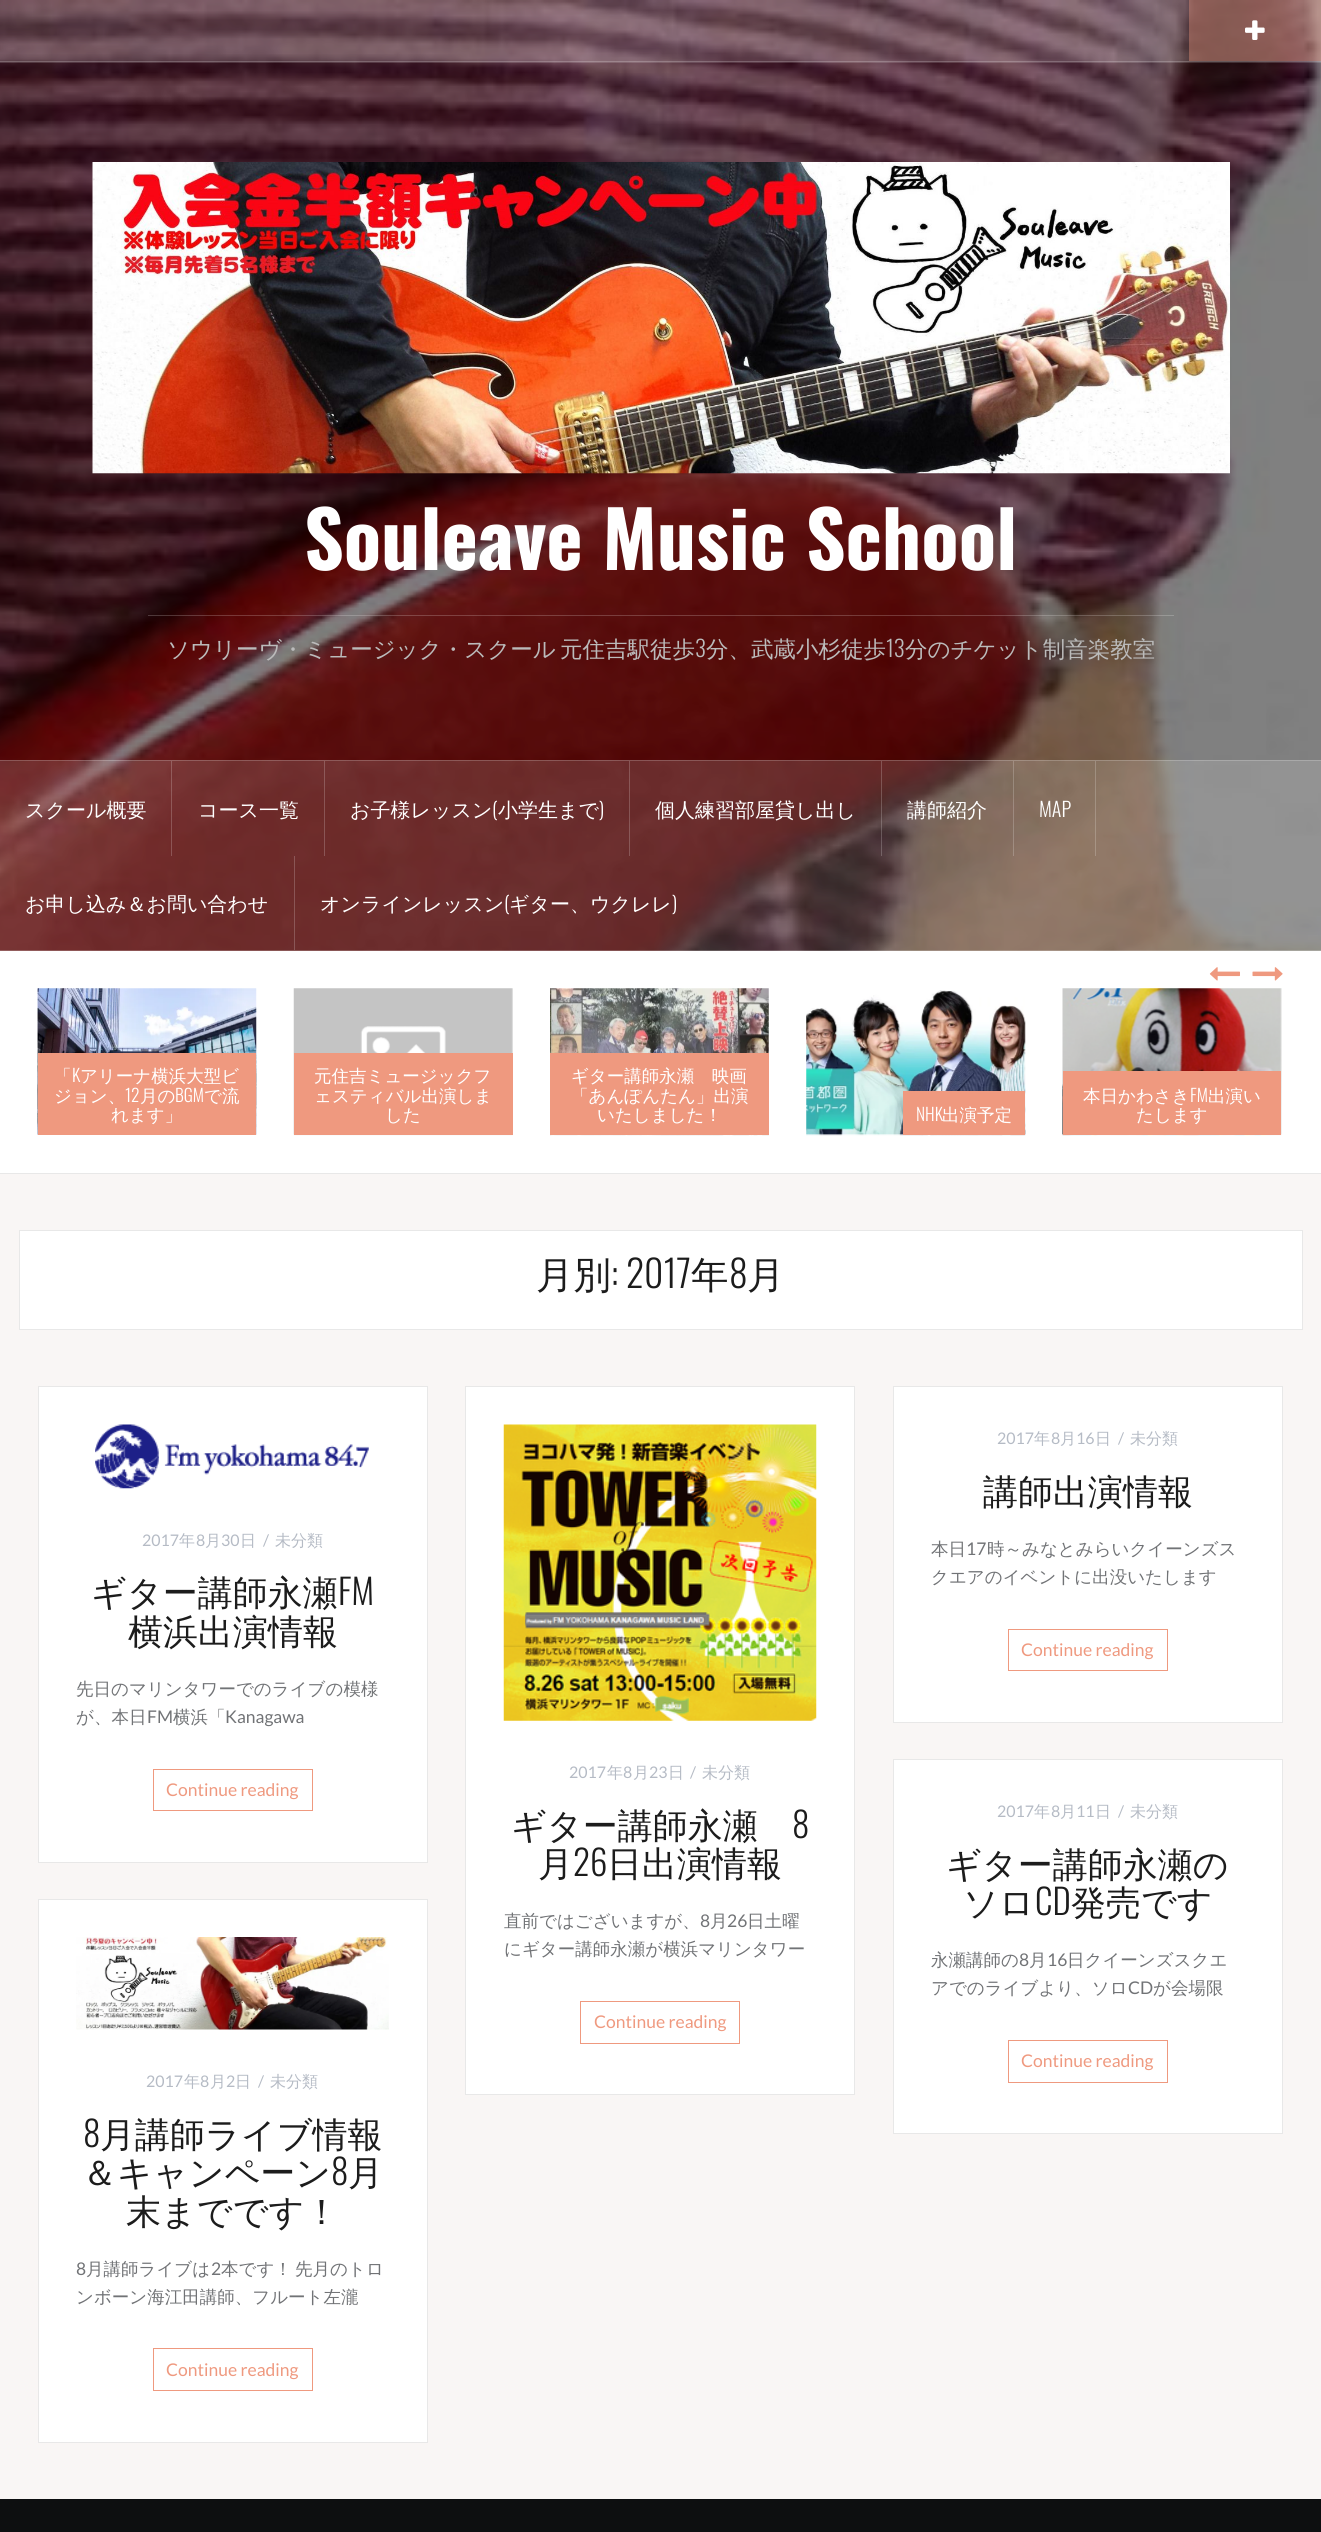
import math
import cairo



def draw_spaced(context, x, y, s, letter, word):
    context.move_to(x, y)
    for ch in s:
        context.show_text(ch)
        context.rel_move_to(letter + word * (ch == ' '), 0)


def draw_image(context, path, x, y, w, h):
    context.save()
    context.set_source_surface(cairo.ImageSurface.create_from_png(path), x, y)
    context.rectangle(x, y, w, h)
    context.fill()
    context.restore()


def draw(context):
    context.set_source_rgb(249 / 255, 246 / 255, 245 / 255)
    context.paint()
    draw_image(context, "images/1.png", 0, 0, 1321, 951)
    context.set_source_rgba(1, 1, 1, 0.15)
    context.rectangle(0, 0, 1321, 63)
    context.fill()
    context.set_source_rgba(1, 1, 1, 0.2)
    context.rectangle(0, 61, 1321, 1)
    context.fill()
    context.set_source_rgba(239 / 255, 153 / 255, 127 / 255, 0.4)
    context.rectangle(1189, 0, 132, 61)
    context.fill()
    draw_image(context, "images/2.png", 1245, 20, 20, 20)
    draw_image(context, "images/3.png", 92, 162, 1138, 312)
    context.set_source_rgba(1, 1, 1, 0.2)
    context.rectangle(148, 615, 1026, 1)
    context.fill()
    context.set_source_rgba(1, 1, 1, 0.15)
    context.rectangle(0, 760, 1321, 191)
    context.fill()
    context.set_source_rgba(1, 1, 1, 0.2)
    context.rectangle(0, 760, 1321, 1)
    context.fill()
    context.rectangle(0, 950, 1321, 1)
    context.fill()
    context.rectangle(171, 761, 1, 95)
    context.fill()
    context.rectangle(324, 761, 1, 95)
    context.fill()
    context.rectangle(629, 761, 1, 95)
    context.fill()
    context.rectangle(881, 761, 1, 95)
    context.fill()
    context.rectangle(1013, 761, 1, 95)
    context.fill()
    context.rectangle(1095, 761, 1, 95)
    context.fill()
    context.rectangle(294, 856, 1, 94)
    context.fill()
    context.set_source_rgb(1, 1, 1)
    context.rectangle(0, 951, 1321, 222)
    context.fill()
    context.set_source_rgb(232 / 255, 232 / 255, 232 / 255)
    context.rectangle(0, 1173, 1321, 1)
    context.fill()
    draw_image(context, "images/4.png", 1209, 967, 31, 14)
    draw_image(context, "images/5.png", 1252, 967, 31, 14)
    draw_image(context, "images/6.png", 37, 988, 220, 147)
    context.set_source_rgb(239 / 255, 153 / 255, 127 / 255)
    context.rectangle(38, 1053, 218, 82)
    context.fill()
    draw_image(context, "images/7.png", 293, 988, 220, 148)
    context.rectangle(294, 1053, 219, 82)
    context.fill()
    draw_image(context, "images/8.png", 550, 988, 219, 148)
    context.rectangle(550, 1053, 219, 82)
    context.fill()
    draw_image(context, "images/9.png", 806, 990, 220, 146)
    context.rectangle(903, 1091, 122, 44)
    context.fill()
    draw_image(context, "images/10.png", 1062, 988, 220, 148)
    context.rectangle(1063, 1071, 218, 64)
    context.fill()
    context.set_source_rgb(1, 1, 1)
    context.rectangle(19.5, 1230.5, 1283, 99)
    context.fill_preserve()
    context.set_source_rgb(232 / 255, 232 / 255, 232 / 255)
    context.set_line_width(1)
    context.stroke()
    context.set_source_rgb(1, 1, 1)
    context.rectangle(38.5, 1386.5, 389, 476)
    context.fill_preserve()
    context.set_source_rgb(232 / 255, 232 / 255, 232 / 255)
    context.stroke()
    draw_image(context, "images/11.png", 95, 1424, 274, 65)
    context.rectangle(153.5, 1769.5, 159, 41)
    context.set_source_rgb(239 / 255, 153 / 255, 127 / 255)
    context.stroke()
    context.set_source_rgb(1, 1, 1)
    context.rectangle(893.5, 1386.5, 389, 336)
    context.fill_preserve()
    context.set_source_rgb(232 / 255, 232 / 255, 232 / 255)
    context.stroke()
    context.rectangle(1008.5, 1629.5, 159, 41)
    context.set_source_rgb(239 / 255, 153 / 255, 127 / 255)
    context.stroke()
    context.set_source_rgb(1, 1, 1)
    context.rectangle(465.5, 1386.5, 389, 708)
    context.fill_preserve()
    context.set_source_rgb(232 / 255, 232 / 255, 232 / 255)
    context.stroke()
    draw_image(context, "images/12.png", 503, 1424, 314, 297)
    context.rectangle(580.5, 2001.5, 159, 42)
    context.set_source_rgb(239 / 255, 153 / 255, 127 / 255)
    context.stroke()
    context.set_source_rgb(1, 1, 1)
    context.rectangle(893.5, 1759.5, 389, 374)
    context.fill_preserve()
    context.set_source_rgb(232 / 255, 232 / 255, 232 / 255)
    context.stroke()
    context.rectangle(1008.5, 2040.5, 159, 42)
    context.set_source_rgb(239 / 255, 153 / 255, 127 / 255)
    context.stroke()
    context.set_source_rgb(1, 1, 1)
    context.rectangle(38.5, 1899.5, 389, 543)
    context.fill_preserve()
    context.set_source_rgb(232 / 255, 232 / 255, 232 / 255)
    context.stroke()
    draw_image(context, "images/13.png", 76, 1937, 313, 93)
    context.rectangle(153.5, 2348.5, 159, 42)
    context.set_source_rgb(239 / 255, 153 / 255, 127 / 255)
    context.stroke()
    context.set_source_rgb(13 / 255, 15 / 255, 16 / 255)
    context.rectangle(0, 2499, 1321, 33)
    context.fill()
    context.select_font_face("Oswald", cairo.FontSlant.NORMAL, cairo.FontWeight.BOLD)
    context.set_font_size(77.5)
    context.set_source_rgb(1, 1, 1)
    context.move_to(304, 570)
    context.show_text("Souleave Music School")
    context.select_font_face("WenQuanYi Zen Hei Medium")
    context.set_font_size(22.5)
    context.set_source_rgb(187 / 255, 187 / 255, 187 / 255)
    context.move_to(167, 657)
    context.show_text("ソウリーヴ・ミュージック・スクール")
    context.move_to(560, 657)
    context.show_text("元住吉駅徒歩")
    context.select_font_face("Oswald Light")
    context.move_to(695, 657)
    context.show_text("3")
    context.select_font_face("WenQuanYi Zen Hei Medium")
    context.move_to(706, 657)
    context.show_text("分、武蔵小杉徒歩")
    context.select_font_face("Oswald Light")
    context.move_to(886, 657)
    context.show_text("13")
    context.select_font_face("WenQuanYi Zen Hei Medium")
    context.move_to(905, 657)
    context.show_text("分のチケット制音楽教室")
    context.set_font_size(20)
    context.set_source_rgb(1, 1, 1)
    context.move_to(25, 817)
    context.show_text("スクール概要")
    context.move_to(198, 817)
    context.show_text("コース一覧")
    context.move_to(350, 817)
    context.show_text("お子様レッスン")
    context.select_font_face("Oswald Light")
    context.move_to(492, 817)
    context.show_text("(")
    context.select_font_face("WenQuanYi Zen Hei Medium")
    context.move_to(498, 817)
    context.show_text("小学生まで")
    context.select_font_face("Oswald Light")
    context.move_to(599, 817)
    context.show_text(")")
    context.select_font_face("WenQuanYi Zen Hei Medium")
    context.move_to(655, 817)
    context.show_text("個人練習部屋貸し出し")
    context.move_to(907, 817)
    context.show_text("講師紹介")
    context.select_font_face("Oswald Light")
    context.move_to(1039, 817)
    context.show_text("MAP")
    context.select_font_face("WenQuanYi Zen Hei Medium")
    context.move_to(25, 911)
    context.show_text("お申し込み＆お問い合わせ")
    context.move_to(320, 911)
    context.show_text("オンラインレッスン")
    context.select_font_face("Oswald Light")
    context.move_to(504, 911)
    context.show_text("(")
    context.select_font_face("WenQuanYi Zen Hei Medium")
    context.move_to(509, 911)
    context.show_text("ギター、ウクレレ")
    context.select_font_face("Oswald Light")
    context.move_to(672, 911)
    context.show_text(")")
    context.select_font_face("WenQuanYi Zen Hei Medium")
    context.set_font_size(17.5)
    context.move_to(54, 1082)
    context.show_text("「")
    context.select_font_face("Oswald Light")
    context.move_to(72, 1082)
    context.show_text("K")
    context.select_font_face("WenQuanYi Zen Hei Medium")
    context.move_to(80, 1082)
    context.show_text("アリーナ横浜大型ビ")
    context.move_to(54, 1102)
    context.show_text("ジョン、")
    context.select_font_face("Oswald Light")
    context.move_to(125, 1102)
    context.show_text("12")
    context.select_font_face("WenQuanYi Zen Hei Medium")
    context.move_to(140, 1102)
    context.show_text("月の")
    context.select_font_face("Oswald Light")
    context.move_to(175, 1102)
    context.show_text("BGM")
    context.select_font_face("WenQuanYi Zen Hei Medium")
    context.move_to(204, 1102)
    context.show_text("で流")
    context.move_to(111, 1121)
    context.show_text("れます」")
    context.move_to(314, 1082)
    context.show_text("元住吉ミュージックフ")
    context.move_to(314, 1102)
    context.show_text("ェスティバル出演しま")
    context.move_to(385, 1121)
    context.show_text("した")
    context.move_to(571, 1082)
    context.show_text("ギター講師永瀬　映画")
    context.move_to(571, 1102)
    context.show_text("「あんぽんたん」出演")
    context.move_to(597, 1121)
    context.show_text("いたしました！")
    context.select_font_face("Oswald Light")
    context.move_to(916, 1121)
    context.show_text("NHK")
    context.select_font_face("WenQuanYi Zen Hei Medium")
    context.move_to(942, 1121)
    context.show_text("出演予定")
    context.move_to(1083, 1102)
    context.show_text("本日かわさき")
    context.select_font_face("Oswald Light")
    context.move_to(1190, 1102)
    context.show_text("FM")
    context.select_font_face("WenQuanYi Zen Hei Medium")
    context.move_to(1208, 1102)
    context.show_text("出演い")
    context.move_to(1136, 1121)
    context.show_text("たします")
    context.set_font_size(37.5)
    context.set_source_rgb(28 / 255, 28 / 255, 28 / 255)
    context.move_to(536, 1288)
    context.show_text("月別")
    context.select_font_face("Oswald Light")
    context.move_to(611, 1288)
    context.show_text(": 2017")
    context.select_font_face("WenQuanYi Zen Hei Medium")
    context.move_to(691, 1288)
    context.show_text("年")
    context.select_font_face("Oswald Light")
    context.move_to(729, 1288)
    context.show_text("8")
    context.select_font_face("WenQuanYi Zen Hei Medium")
    context.move_to(747, 1288)
    context.show_text("月")
    context.select_font_face("Lato")
    context.set_font_size(16)
    context.set_source_rgb(181 / 255, 187 / 255, 197 / 255)
    context.move_to(142, 1546)
    context.show_text("2017")
    context.select_font_face("WenQuanYi Zen Hei Medium")
    context.move_to(179, 1546)
    context.show_text("年")
    context.select_font_face("Lato")
    context.move_to(196, 1546)
    context.show_text("8")
    context.select_font_face("WenQuanYi Zen Hei Medium")
    context.move_to(205, 1546)
    context.show_text("月")
    context.select_font_face("Lato")
    context.move_to(221, 1546)
    context.show_text("30")
    context.select_font_face("WenQuanYi Zen Hei Medium")
    context.move_to(240, 1546)
    context.show_text("日")
    context.select_font_face("Lato")
    context.move_to(263, 1546)
    context.show_text("/")
    context.select_font_face("WenQuanYi Zen Hei Medium")
    context.move_to(275, 1546)
    context.show_text("未分類")
    context.set_font_size(35)
    context.set_source_rgb(28 / 255, 28 / 255, 28 / 255)
    context.move_to(91, 1605)
    context.show_text("ギター講師永瀬")
    context.select_font_face("Oswald Light")
    context.move_to(338, 1605)
    context.show_text("FM")
    context.select_font_face("WenQuanYi Zen Hei Medium")
    context.move_to(128, 1644)
    context.show_text("横浜出演情報")
    context.set_font_size(17.5)
    context.set_source_rgb(113 / 255, 115 / 255, 118 / 255)
    context.move_to(76, 1695)
    context.show_text("先日のマリンタワーでのライブの模様")
    context.move_to(76, 1723)
    context.show_text("が、本日")
    context.select_font_face("Lato")
    context.move_to(147, 1723)
    context.show_text("FM")
    context.select_font_face("WenQuanYi Zen Hei Medium")
    context.move_to(173, 1723)
    context.show_text("横浜「")
    context.select_font_face("Lato")
    context.move_to(225, 1723)
    context.show_text("Kanagawa")
    context.set_source_rgb(239 / 255, 153 / 255, 127 / 255)
    context.move_to(166, 1796)
    context.show_text("Continue reading")
    context.set_font_size(16)
    context.set_source_rgb(181 / 255, 187 / 255, 197 / 255)
    context.move_to(997, 1444)
    context.show_text("2017")
    context.select_font_face("WenQuanYi Zen Hei Medium")
    context.move_to(1034, 1444)
    context.show_text("年")
    context.select_font_face("Lato")
    context.move_to(1051, 1444)
    context.show_text("8")
    context.select_font_face("WenQuanYi Zen Hei Medium")
    context.move_to(1060, 1444)
    context.show_text("月")
    context.select_font_face("Lato")
    context.move_to(1076, 1444)
    context.show_text("16")
    context.select_font_face("WenQuanYi Zen Hei Medium")
    context.move_to(1095, 1444)
    context.show_text("日")
    context.select_font_face("Lato")
    context.move_to(1118, 1444)
    context.show_text("/")
    context.select_font_face("WenQuanYi Zen Hei Medium")
    context.move_to(1130, 1444)
    context.show_text("未分類")
    context.set_font_size(35)
    context.set_source_rgb(28 / 255, 28 / 255, 28 / 255)
    context.move_to(983, 1504)
    context.show_text("講師出演情報")
    context.set_font_size(17.5)
    context.set_source_rgb(113 / 255, 115 / 255, 118 / 255)
    context.move_to(931, 1555)
    context.show_text("本日")
    context.select_font_face("Lato")
    context.move_to(966, 1555)
    context.show_text("17")
    context.select_font_face("WenQuanYi Zen Hei Medium")
    context.move_to(987, 1555)
    context.show_text("時～みなとみらいクイーンズス")
    context.move_to(931, 1583)
    context.show_text("クエアのイベントに出没いたします")
    context.select_font_face("Lato")
    context.set_source_rgb(239 / 255, 153 / 255, 127 / 255)
    context.move_to(1021, 1656)
    context.show_text("Continue reading")
    context.set_font_size(16)
    context.set_source_rgb(181 / 255, 187 / 255, 197 / 255)
    context.move_to(569, 1778)
    context.show_text("2017")
    context.select_font_face("WenQuanYi Zen Hei Medium")
    context.move_to(607, 1778)
    context.show_text("年")
    context.select_font_face("Lato")
    context.move_to(623, 1778)
    context.show_text("8")
    context.select_font_face("WenQuanYi Zen Hei Medium")
    context.move_to(633, 1778)
    context.show_text("月")
    context.select_font_face("Lato")
    context.move_to(649, 1778)
    context.show_text("23")
    context.select_font_face("WenQuanYi Zen Hei Medium")
    context.move_to(668, 1778)
    context.show_text("日")
    context.select_font_face("Lato")
    context.move_to(690, 1778)
    context.show_text("/")
    context.select_font_face("WenQuanYi Zen Hei Medium")
    context.move_to(702, 1778)
    context.show_text("未分類")
    context.set_font_size(35)
    context.set_source_rgb(28 / 255, 28 / 255, 28 / 255)
    context.move_to(511, 1838)
    context.show_text("ギター講師永瀬")
    context.select_font_face("Oswald Light")
    context.move_to(792, 1838)
    context.show_text("8")
    context.select_font_face("WenQuanYi Zen Hei Medium")
    context.move_to(538, 1876)
    context.show_text("月")
    context.select_font_face("Oswald Light")
    context.move_to(573, 1876)
    context.show_text("26")
    context.select_font_face("WenQuanYi Zen Hei Medium")
    context.move_to(607, 1876)
    context.show_text("日出演情報")
    context.set_font_size(17.5)
    context.set_source_rgb(113 / 255, 115 / 255, 118 / 255)
    context.move_to(504, 1927)
    context.show_text("直前ではございますが、")
    context.select_font_face("Lato")
    context.move_to(700, 1927)
    context.show_text("8")
    context.select_font_face("WenQuanYi Zen Hei Medium")
    context.move_to(710, 1927)
    context.show_text("月")
    context.select_font_face("Lato")
    context.move_to(727, 1927)
    context.show_text("26")
    context.select_font_face("WenQuanYi Zen Hei Medium")
    context.move_to(747, 1927)
    context.show_text("日土曜")
    context.move_to(504, 1955)
    context.show_text("にギター講師永瀬が横浜マリンタワー")
    context.select_font_face("Lato")
    context.set_source_rgb(239 / 255, 153 / 255, 127 / 255)
    context.move_to(594, 2028)
    context.show_text("Continue reading")
    context.set_font_size(16)
    context.set_source_rgb(181 / 255, 187 / 255, 197 / 255)
    context.move_to(997, 1817)
    context.show_text("2017")
    context.select_font_face("WenQuanYi Zen Hei Medium")
    context.move_to(1034, 1817)
    context.show_text("年")
    context.select_font_face("Lato")
    context.move_to(1051, 1817)
    context.show_text("8")
    context.select_font_face("WenQuanYi Zen Hei Medium")
    context.move_to(1060, 1817)
    context.show_text("月")
    context.select_font_face("Lato")
    context.move_to(1076, 1817)
    context.show_text("11")
    context.select_font_face("WenQuanYi Zen Hei Medium")
    context.move_to(1095, 1817)
    context.show_text("日")
    context.select_font_face("Lato")
    context.move_to(1118, 1817)
    context.show_text("/")
    context.select_font_face("WenQuanYi Zen Hei Medium")
    context.move_to(1130, 1817)
    context.show_text("未分類")
    context.set_font_size(35)
    context.set_source_rgb(28 / 255, 28 / 255, 28 / 255)
    context.move_to(946, 1877)
    context.show_text("ギター講師永瀬の")
    context.move_to(963, 1915)
    context.show_text("ソロ")
    context.select_font_face("Oswald Light")
    context.move_to(1035, 1915)
    context.show_text("CD")
    context.select_font_face("WenQuanYi Zen Hei Medium")
    context.move_to(1071, 1915)
    context.show_text("発売です")
    context.set_font_size(17.5)
    context.set_source_rgb(113 / 255, 115 / 255, 118 / 255)
    context.move_to(931, 1966)
    context.show_text("永瀬講師の")
    context.select_font_face("Lato")
    context.move_to(1019, 1966)
    context.show_text("8")
    context.select_font_face("WenQuanYi Zen Hei Medium")
    context.move_to(1029, 1966)
    context.show_text("月")
    context.select_font_face("Lato")
    context.move_to(1047, 1966)
    context.show_text("16")
    context.select_font_face("WenQuanYi Zen Hei Medium")
    context.move_to(1067, 1966)
    context.show_text("日クイーンズスクエ")
    context.move_to(931, 1994)
    context.show_text("アでのライブより、ソロ")
    context.select_font_face("Lato")
    context.move_to(1128, 1994)
    context.show_text("CD")
    context.select_font_face("WenQuanYi Zen Hei Medium")
    context.move_to(1153, 1994)
    context.show_text("が会場限")
    context.select_font_face("Lato")
    context.set_source_rgb(239 / 255, 153 / 255, 127 / 255)
    context.move_to(1021, 2067)
    context.show_text("Continue reading")
    context.set_font_size(16)
    context.set_source_rgb(181 / 255, 187 / 255, 197 / 255)
    context.move_to(146, 2087)
    context.show_text("2017")
    context.select_font_face("WenQuanYi Zen Hei Medium")
    context.move_to(184, 2087)
    context.show_text("年")
    context.select_font_face("Lato")
    context.move_to(200, 2087)
    context.show_text("8")
    context.select_font_face("WenQuanYi Zen Hei Medium")
    context.move_to(210, 2087)
    context.show_text("月")
    context.select_font_face("Lato")
    context.move_to(226, 2087)
    context.show_text("2")
    context.select_font_face("WenQuanYi Zen Hei Medium")
    context.move_to(235, 2087)
    context.show_text("日")
    context.select_font_face("Lato")
    context.move_to(258, 2087)
    context.show_text("/")
    context.select_font_face("WenQuanYi Zen Hei Medium")
    context.move_to(270, 2087)
    context.show_text("未分類")
    context.select_font_face("Oswald Light")
    context.set_font_size(35)
    context.set_source_rgb(28 / 255, 28 / 255, 28 / 255)
    context.move_to(83, 2147)
    context.show_text("8")
    context.select_font_face("WenQuanYi Zen Hei Medium")
    context.move_to(100, 2147)
    context.show_text("月講師ライブ情報")
    context.move_to(82, 2185)
    context.show_text("＆キャンペーン")
    context.select_font_face("Oswald Light")
    context.move_to(331, 2185)
    context.show_text("8")
    context.select_font_face("WenQuanYi Zen Hei Medium")
    context.move_to(348, 2185)
    context.show_text("月")
    context.move_to(126, 2224)
    context.show_text("末までです！")
    context.select_font_face("Lato")
    context.set_font_size(17.5)
    context.set_source_rgb(113 / 255, 115 / 255, 118 / 255)
    context.move_to(76, 2275)
    context.show_text("8")
    context.select_font_face("WenQuanYi Zen Hei Medium")
    context.move_to(86, 2275)
    context.show_text("月講師ライブは")
    context.select_font_face("Lato")
    context.move_to(211, 2275)
    context.show_text("2")
    context.select_font_face("WenQuanYi Zen Hei Medium")
    draw_spaced(context, 221, 2275, "本です！ 先月のトロ", 0, -2)
    context.move_to(76, 2303)
    context.show_text("ンボーン海江田講師、フルート左瀧")
    context.select_font_face("Lato")
    context.set_source_rgb(239 / 255, 153 / 255, 127 / 255)
    context.move_to(166, 2376)
    context.show_text("Continue reading")


surface = cairo.ImageSurface(cairo.Format.RGB24, 1321, 2532)
context = cairo.Context(surface)
options = cairo.FontOptions()
options.set_hint_metrics(cairo.HintMetrics.OFF)
options.set_hint_style(cairo.HintStyle.NONE)
context.set_font_options(options)
context.set_miter_limit(4)
draw(context)
surface.write_to_png("out.png")
